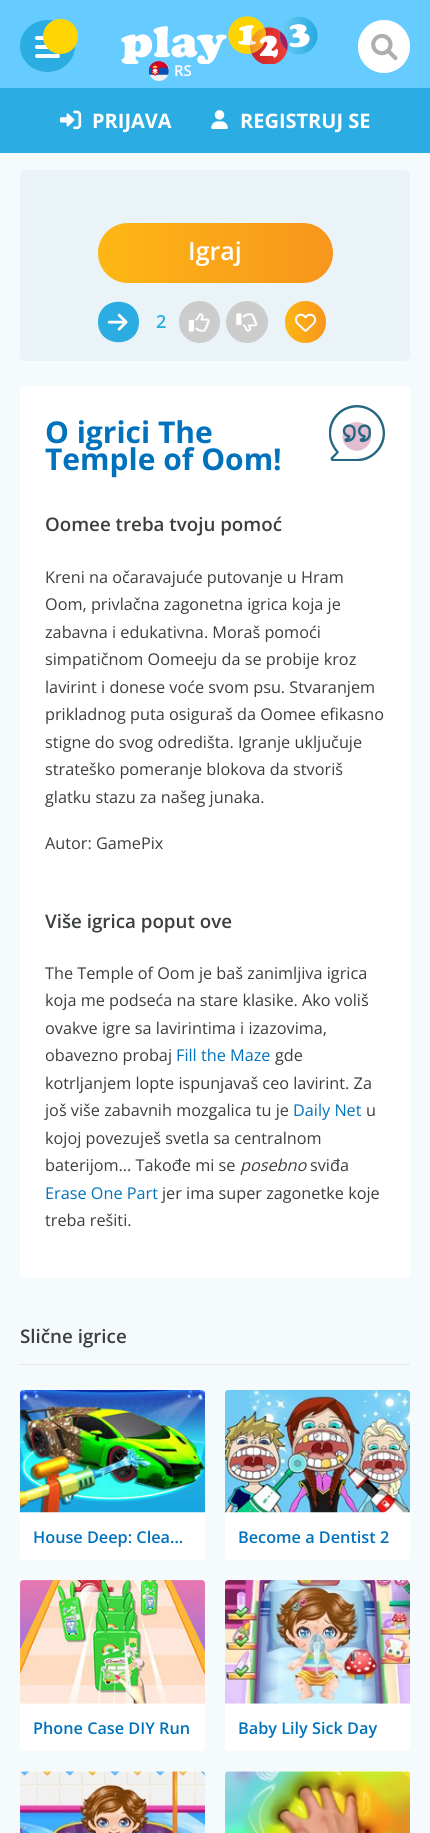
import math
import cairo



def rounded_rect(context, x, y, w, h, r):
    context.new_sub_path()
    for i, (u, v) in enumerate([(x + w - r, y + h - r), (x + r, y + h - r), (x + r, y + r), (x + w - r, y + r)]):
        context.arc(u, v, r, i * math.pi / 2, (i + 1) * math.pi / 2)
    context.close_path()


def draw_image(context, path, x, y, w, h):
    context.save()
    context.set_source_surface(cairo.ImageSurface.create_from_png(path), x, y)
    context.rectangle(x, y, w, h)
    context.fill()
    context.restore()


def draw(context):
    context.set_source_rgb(245 / 255, 250 / 255, 252 / 255)
    context.paint()
    context.set_source_rgb(102 / 255, 204 / 255, 1)
    context.rectangle(0, 0, 430, 88)
    context.fill()
    context.set_source_rgb(43 / 255, 172 / 255, 226 / 255)
    context.new_path()
    context.move_to(47.5, 20)
    context.curve_to(62.5, 20, 75, 31.5, 75, 46)
    context.curve_to(75, 60.5, 62.5, 72, 47.5, 72)
    context.curve_to(32.5, 72, 20, 60.5, 20, 46)
    context.curve_to(20, 31.5, 32.5, 20, 47.5, 20)
    context.close_path()
    context.fill()
    context.set_source_rgb(1, 1, 1)
    rounded_rect(context, 35, 36, 25, 4, 2)
    context.fill()
    rounded_rect(context, 35, 45, 25, 4, 2)
    context.fill()
    context.set_source_rgb(1, 213 / 255, 3 / 255)
    context.arc(60.5, 36.5, 17.5, 0, 2 * math.pi)
    context.fill()
    context.set_source_rgb(1, 1, 1)
    rounded_rect(context, 35, 54, 25, 4, 2)
    context.fill()
    draw_image(context, "images/1.png", 121, 16, 197, 48)
    draw_image(context, "images/2.png", 149, 61, 20, 20)
    rounded_rect(context, 358, 20, 52, 53, 26)
    context.fill()
    draw_image(context, "images/3.png", 371, 33, 27, 28)
    context.set_source_rgb(43 / 255, 172 / 255, 226 / 255)
    context.rectangle(0, 88, 430, 65)
    context.fill()
    draw_image(context, "images/4.png", 60, 110, 22, 20)
    draw_image(context, "images/5.png", 211, 110, 17, 19)
    context.set_source_rgb(234 / 255, 244 / 255, 248 / 255)
    rounded_rect(context, 20, 170, 390, 191, 6)
    context.fill()
    gradient = cairo.LinearGradient(98, 253, 333, 253)
    gradient.add_color_stop_rgba(0, 253 / 255, 183 / 255, 20 / 255, 1)
    gradient.add_color_stop_rgba(1, 248 / 255, 149 / 255, 29 / 255, 1)
    context.set_source(gradient)
    rounded_rect(context, 98, 223, 235, 60, 30)
    context.fill()
    context.set_source_rgb(43 / 255, 172 / 255, 226 / 255)
    context.new_path()
    context.move_to(139, 322)
    context.curve_to(139, 349, 98, 349, 98, 322)
    context.curve_to(98, 295, 139, 295, 139, 322)
    context.close_path()
    context.fill()
    draw_image(context, "images/6.png", 107, 313, 21, 18)
    context.set_source_rgb(205 / 255, 204 / 255, 204 / 255)
    rounded_rect(context, 179, 301, 41, 42, 20.5)
    context.fill()
    draw_image(context, "images/7.png", 188, 313, 22, 19)
    context.arc(247, 322, 21, 0, 2 * math.pi)
    context.fill()
    draw_image(context, "images/8.png", 236, 313, 22, 19)
    gradient = cairo.LinearGradient(285, 322, 326, 322)
    gradient.add_color_stop_rgba(0, 253 / 255, 183 / 255, 20 / 255, 1)
    gradient.add_color_stop_rgba(1, 248 / 255, 149 / 255, 29 / 255, 1)
    context.set_source(gradient)
    rounded_rect(context, 285, 301, 41, 42, 20.5)
    context.fill()
    draw_image(context, "images/9.png", 295, 313, 22, 19)
    context.set_source_rgb(1, 1, 1)
    rounded_rect(context, 20, 386, 390, 892, 5)
    context.fill()
    draw_image(context, "images/10.png", 329, 405, 56, 56)
    context.new_path()
    context.move_to(20, 1364.5)
    context.line_to(410, 1364.5)
    context.set_source_rgb(217 / 255, 217 / 255, 217 / 255)
    context.set_line_width(1.2)
    context.set_dash([1.25, 1.25])
    context.stroke()
    context.set_source_rgb(1, 1, 1)
    rounded_rect(context, 20, 1390, 185, 170, 4)
    context.fill()
    draw_image(context, "images/11.png", 20, 1390, 185, 123)
    rounded_rect(context, 225, 1390, 185, 170, 4)
    context.fill()
    draw_image(context, "images/12.png", 225, 1390, 185, 123)
    rounded_rect(context, 20, 1580, 185, 171, 4)
    context.fill()
    draw_image(context, "images/13.png", 20, 1580, 185, 124)
    rounded_rect(context, 225, 1580, 185, 171, 4)
    context.fill()
    draw_image(context, "images/14.png", 225, 1580, 185, 124)
    rounded_rect(context, 20, 1771, 185, 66, 4)
    context.fill()
    draw_image(context, "images/15.png", 20, 1771, 185, 62)
    rounded_rect(context, 225, 1771, 185, 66, 4)
    context.fill()
    draw_image(context, "images/16.png", 225, 1771, 185, 62)
    context.select_font_face("Open Sans SemiBold")
    context.set_font_size(15)
    context.move_to(174, 76)
    context.show_text("RS")
    context.select_font_face("Open Sans", cairo.FontSlant.NORMAL, cairo.FontWeight.BOLD)
    context.set_font_size(20)
    context.move_to(92, 128)
    context.show_text("PRIJAVA")
    context.move_to(240, 128)
    context.show_text("REGISTRUJ SE")
    context.select_font_face("Open Sans SemiBold")
    context.set_font_size(25)
    context.move_to(188, 260)
    context.show_text("Igraj")
    context.set_font_size(18)
    context.set_source_rgb(43 / 255, 172 / 255, 226 / 255)
    context.move_to(156, 328)
    context.show_text("2")
    context.select_font_face("Open Sans", cairo.FontSlant.NORMAL, cairo.FontWeight.BOLD)
    context.set_font_size(30)
    context.set_source_rgb(0, 114 / 255, 188 / 255)
    context.move_to(45, 443)
    context.show_text("O igrici The")
    context.move_to(45, 470)
    context.show_text("Temple of Oom!")
    context.select_font_face("Open Sans SemiBold")
    context.set_font_size(18.75)
    context.set_source_rgb(59 / 255, 62 / 255, 62 / 255)
    context.move_to(45, 531)
    context.show_text("Oomee treba tvoju pomoć")
    context.select_font_face("Open Sans")
    context.set_font_size(16.25)
    context.move_to(45, 583)
    context.show_text("Kreni na očaravajuće putovanje u Hram")
    context.move_to(45, 610)
    context.show_text("Oom, privlačna zagonetna igrica koja je")
    context.move_to(45, 638)
    context.show_text("zabavna i edukativna. Moraš pomoći")
    context.move_to(45, 665)
    context.show_text("simpatičnom Oomeeju da se probije kroz")
    context.move_to(45, 693)
    context.show_text("lavirint i donese voće svom psu. Stvaranjem")
    context.move_to(45, 720)
    context.show_text("prikladnog puta osiguraš da Oomee efikasno")
    context.move_to(45, 748)
    context.show_text("stigne do svog odredišta. Igranje uključuje")
    context.move_to(45, 775)
    context.show_text("strateško pomeranje blokova da stvoriš")
    context.move_to(45, 803)
    context.show_text("glatku stazu za našeg junaka.")
    context.move_to(45, 849)
    context.show_text("Autor: GamePix")
    context.select_font_face("Open Sans SemiBold")
    context.set_font_size(18.75)
    context.move_to(45, 928)
    context.show_text("Više igrica poput ove")
    context.select_font_face("Open Sans")
    context.set_font_size(16.25)
    context.move_to(45, 979)
    context.show_text("The Temple of Oom je baš zanimljiva igrica")
    context.move_to(45, 1006)
    context.show_text("koja me podseća na stare klasike. Ako voliš")
    context.move_to(45, 1034)
    context.show_text("ovakve igre sa lavirintima i izazovima,")
    context.move_to(45, 1061)
    context.show_text("obavezno probaj")
    context.set_source_rgb(0, 114 / 255, 188 / 255)
    context.move_to(176, 1061)
    context.show_text("Fill the Maze")
    context.set_source_rgb(59 / 255, 62 / 255, 62 / 255)
    context.move_to(275, 1061)
    context.show_text("gde")
    context.move_to(45, 1089)
    context.show_text("kotrljanjem lopte ispunjavaš ceo lavirint. Za")
    context.move_to(45, 1116)
    context.show_text("još više zabavnih mozgalica tu je")
    context.set_source_rgb(0, 114 / 255, 188 / 255)
    context.move_to(293, 1116)
    context.show_text("Daily Net")
    context.set_source_rgb(59 / 255, 62 / 255, 62 / 255)
    context.move_to(366, 1116)
    context.show_text("u")
    context.move_to(45, 1144)
    context.show_text("kojoj povezuješ svetla sa centralnom")
    context.move_to(45, 1171)
    context.show_text("baterijom... Takođe mi se")
    context.select_font_face("Open Sans", cairo.FontSlant.ITALIC)
    context.move_to(240, 1171)
    context.show_text("posebno")
    context.select_font_face("Open Sans")
    context.move_to(310, 1171)
    context.show_text("sviđa")
    context.set_source_rgb(0, 114 / 255, 188 / 255)
    context.move_to(45, 1199)
    context.show_text("Erase One Part")
    context.set_source_rgb(59 / 255, 62 / 255, 62 / 255)
    context.move_to(162, 1199)
    context.show_text("jer ima super zagonetke koje")
    context.move_to(45, 1226)
    context.show_text("treba rešiti.")
    context.select_font_face("Open Sans SemiBold")
    context.set_font_size(18.75)
    context.move_to(20, 1343)
    context.show_text("Slične igrice")
    context.set_font_size(16.25)
    context.set_source_rgb(0, 114 / 255, 188 / 255)
    context.move_to(33, 1543)
    context.show_text("House Deep: Clea…")
    context.move_to(238, 1543)
    context.show_text("Become a Dentist 2")
    context.move_to(33, 1734)
    context.show_text("Phone Case DIY Run")
    context.move_to(238, 1734)
    context.show_text("Baby Lily Sick Day")


surface = cairo.ImageSurface(cairo.Format.RGB24, 430, 1833)
context = cairo.Context(surface)
options = cairo.FontOptions()
options.set_hint_metrics(cairo.HintMetrics.OFF)
options.set_hint_style(cairo.HintStyle.NONE)
context.set_font_options(options)
context.set_miter_limit(4)
draw(context)
surface.write_to_png("out.png")
